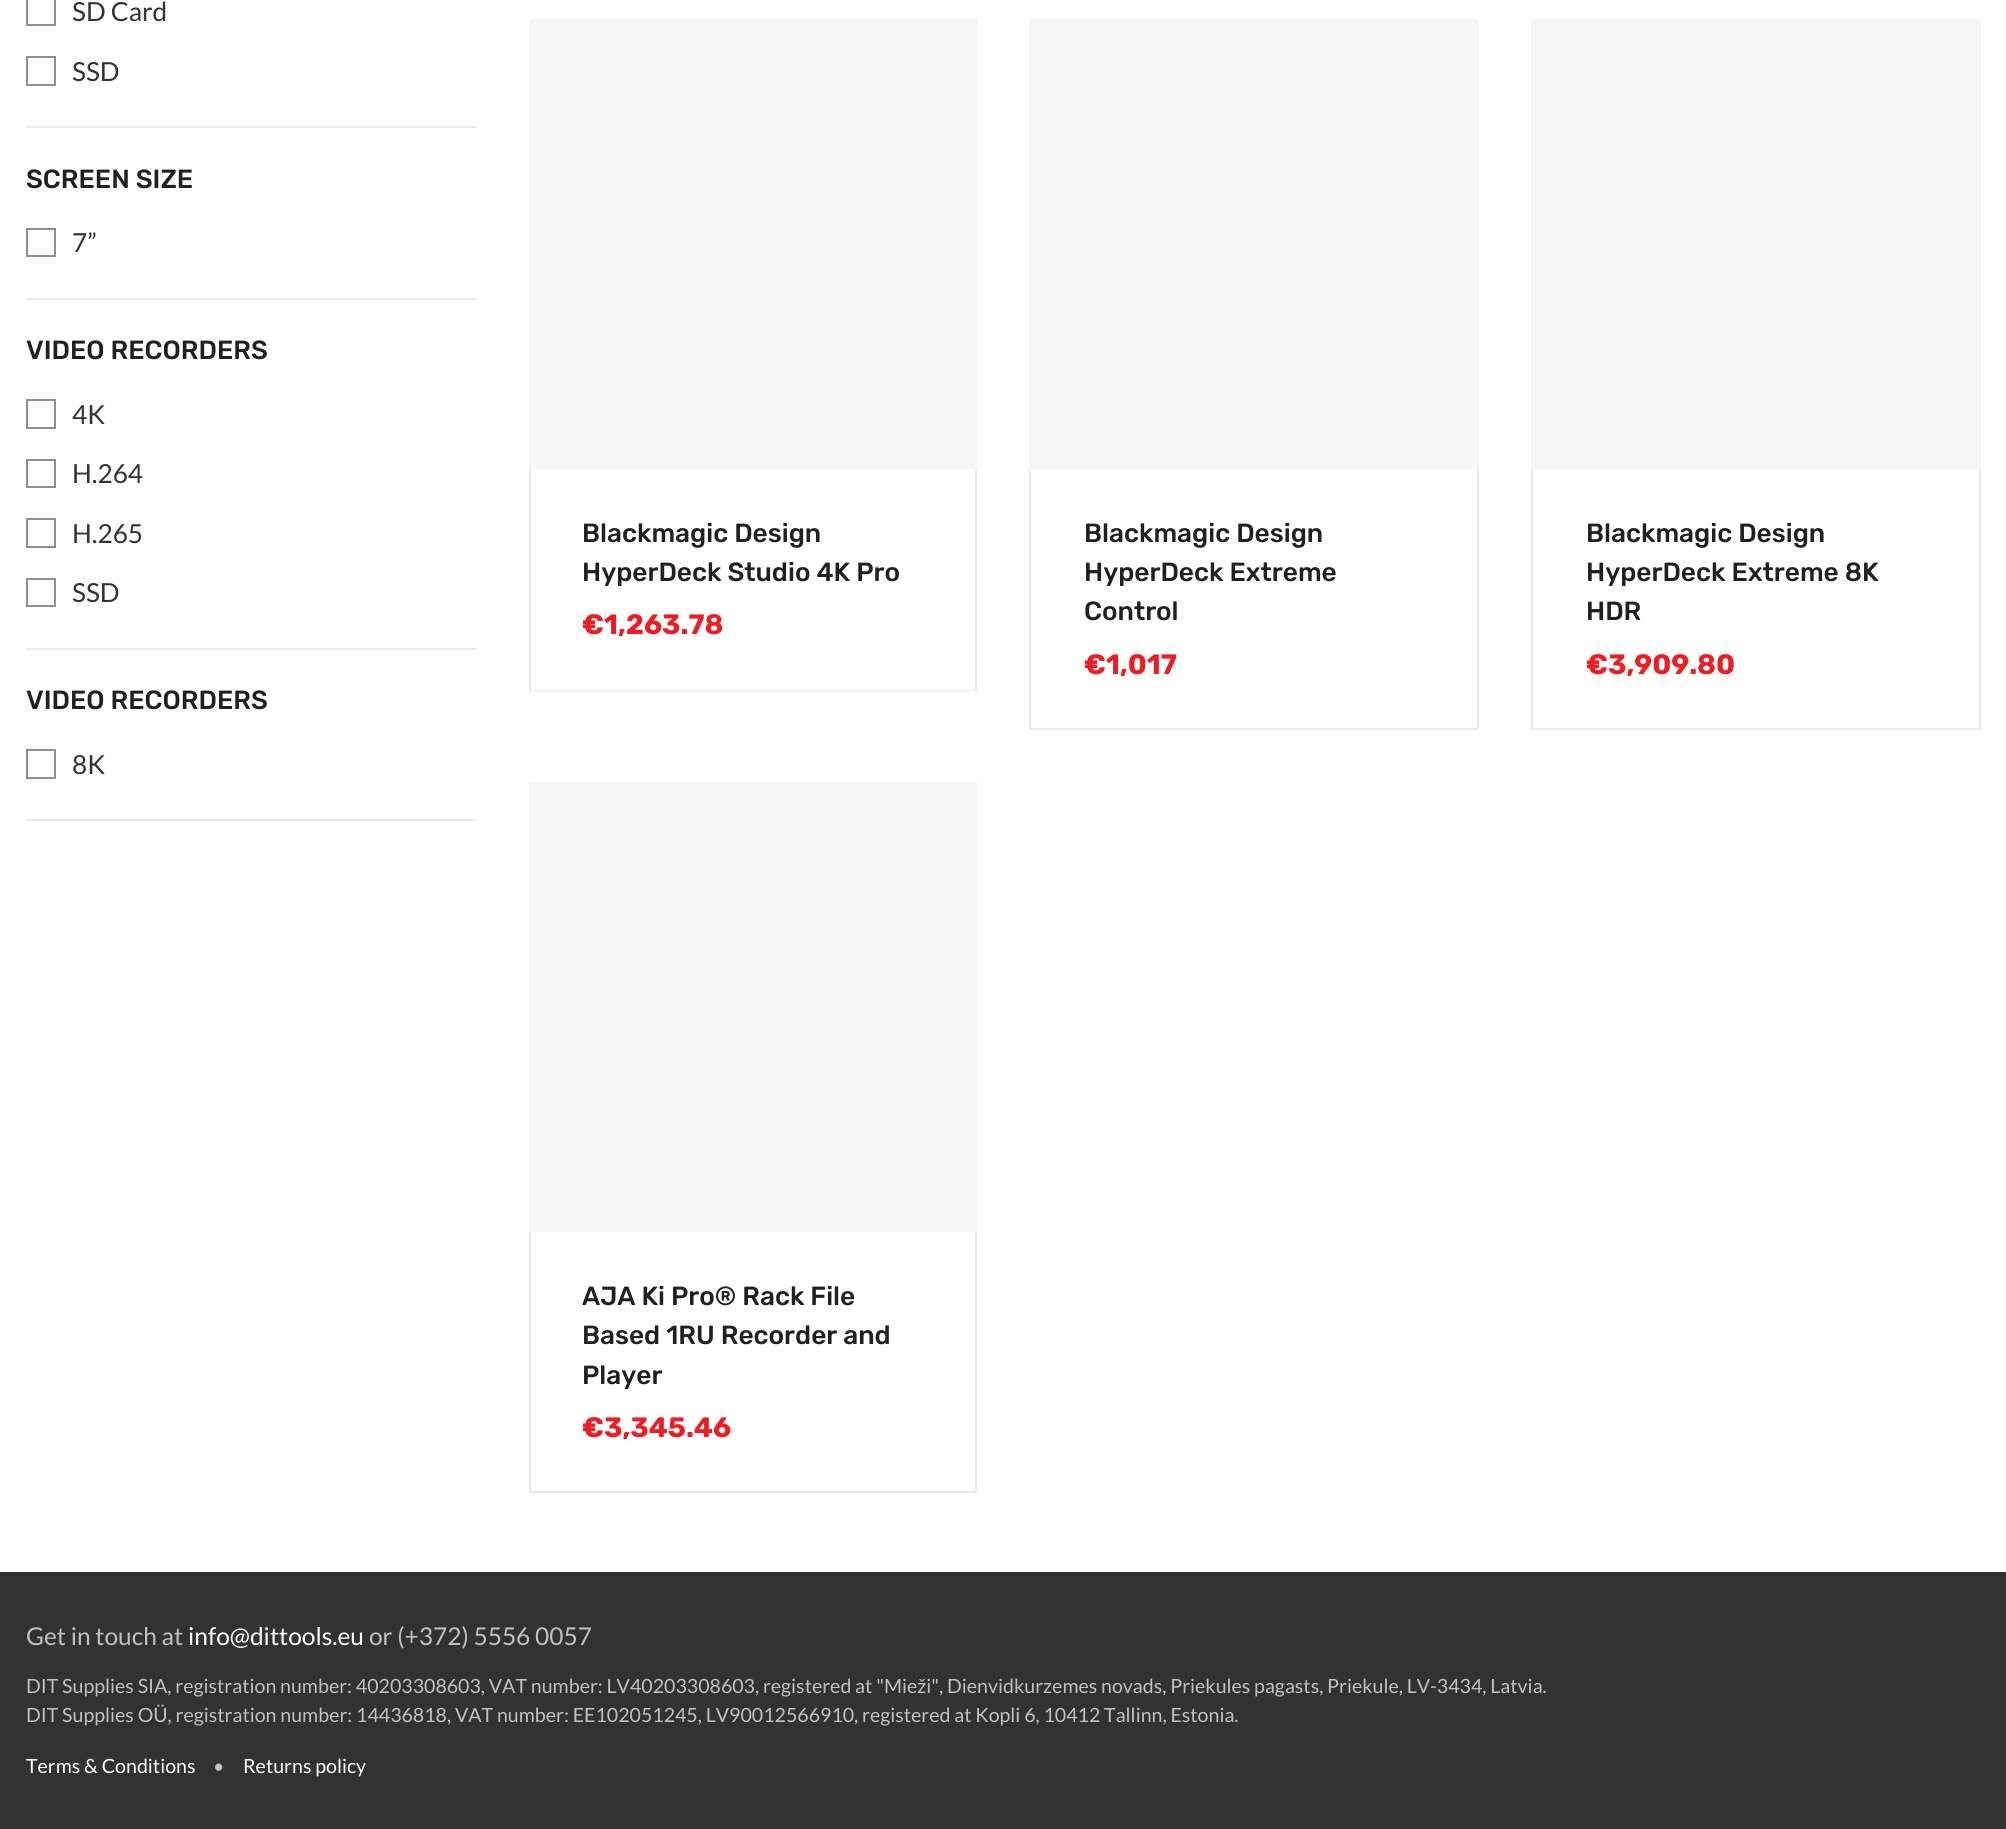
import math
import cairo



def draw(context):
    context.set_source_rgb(1, 1, 1)
    context.paint()
    context.set_source_rgb(235 / 255, 235 / 255, 235 / 255)
    context.rectangle(26, 126, 450, 2)
    context.fill()
    context.rectangle(27, -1, 28, 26)
    context.set_source_rgb(144 / 255, 144 / 255, 144 / 255)
    context.stroke()
    context.rectangle(27, 57, 28, 28)
    context.stroke()
    context.set_source_rgb(235 / 255, 235 / 255, 235 / 255)
    context.rectangle(26, 298, 450, 2)
    context.fill()
    context.rectangle(27, 229, 28, 27)
    context.set_source_rgb(144 / 255, 144 / 255, 144 / 255)
    context.stroke()
    context.set_source_rgb(235 / 255, 235 / 255, 235 / 255)
    context.rectangle(26, 648, 450, 2)
    context.fill()
    context.rectangle(27, 400, 28, 28)
    context.set_source_rgb(144 / 255, 144 / 255, 144 / 255)
    context.stroke()
    context.rectangle(27, 460, 28, 27)
    context.stroke()
    context.rectangle(27, 519, 28, 28)
    context.stroke()
    context.rectangle(27, 579, 28, 27)
    context.stroke()
    context.set_source_rgb(235 / 255, 235 / 255, 235 / 255)
    context.rectangle(26, 819, 450, 2)
    context.fill()
    context.rectangle(27, 750, 28, 28)
    context.set_source_rgb(144 / 255, 144 / 255, 144 / 255)
    context.stroke()
    context.set_source_rgb(245 / 255, 245 / 255, 245 / 255)
    context.rectangle(529, 19, 448, 450)
    context.fill()
    context.set_source_rgb(235 / 255, 235 / 255, 235 / 255)
    context.rectangle(975, 469, 2, 222)
    context.fill()
    context.rectangle(529, 690, 448, 1)
    context.fill()
    context.rectangle(529, 469, 2, 222)
    context.fill()
    context.set_source_rgb(245 / 255, 245 / 255, 245 / 255)
    context.rectangle(1029, 19, 450, 450)
    context.fill()
    context.set_source_rgb(235 / 255, 235 / 255, 235 / 255)
    context.rectangle(1477, 469, 2, 261)
    context.fill()
    context.rectangle(1029, 728, 450, 2)
    context.fill()
    context.rectangle(1029, 469, 2, 261)
    context.fill()
    context.set_source_rgb(245 / 255, 245 / 255, 245 / 255)
    context.rectangle(1531, 19, 450, 450)
    context.fill()
    context.set_source_rgb(235 / 255, 235 / 255, 235 / 255)
    context.rectangle(1979, 469, 2, 261)
    context.fill()
    context.rectangle(1531, 728, 450, 2)
    context.fill()
    context.rectangle(1531, 469, 2, 261)
    context.fill()
    context.set_source_rgb(245 / 255, 245 / 255, 245 / 255)
    context.rectangle(529, 782, 448, 450)
    context.fill()
    context.set_source_rgb(235 / 255, 235 / 255, 235 / 255)
    context.rectangle(975, 1232, 2, 261)
    context.fill()
    context.rectangle(529, 1491, 448, 2)
    context.fill()
    context.rectangle(529, 1232, 2, 261)
    context.fill()
    context.set_source_rgb(50 / 255, 50 / 255, 50 / 255)
    context.rectangle(0, 1572, 2006, 257)
    context.fill()
    context.select_font_face("Lato")
    context.set_font_size(26.25)
    context.set_source_rgb(51 / 255, 51 / 255, 51 / 255)
    context.move_to(72, 21)
    context.show_text("SD Card")
    context.move_to(72, 81)
    context.show_text("SSD")
    context.select_font_face("Rubik Medium")
    context.set_source_rgb(31 / 255, 32 / 255, 33 / 255)
    context.move_to(26, 188)
    context.show_text("SCREEN SIZE")
    context.select_font_face("Lato")
    context.set_source_rgb(51 / 255, 51 / 255, 51 / 255)
    context.move_to(72, 252)
    context.show_text("7”")
    context.select_font_face("Rubik Medium")
    context.set_source_rgb(31 / 255, 32 / 255, 33 / 255)
    context.move_to(26, 359)
    context.show_text("VIDEO RECORDERS")
    context.select_font_face("Lato")
    context.set_source_rgb(51 / 255, 51 / 255, 51 / 255)
    context.move_to(72, 424)
    context.show_text("4K")
    context.move_to(72, 483)
    context.show_text("H.264")
    context.move_to(72, 543)
    context.show_text("H.265")
    context.move_to(72, 602)
    context.show_text("SSD")
    context.select_font_face("Rubik Medium")
    context.set_source_rgb(31 / 255, 32 / 255, 33 / 255)
    context.move_to(26, 709)
    context.show_text("VIDEO RECORDERS")
    context.select_font_face("Lato")
    context.set_source_rgb(51 / 255, 51 / 255, 51 / 255)
    context.move_to(72, 774)
    context.show_text("8K")
    context.select_font_face("Rubik Medium")
    context.set_source_rgb(31 / 255, 32 / 255, 33 / 255)
    context.move_to(582, 542)
    context.show_text("Blackmagic Design")
    context.move_to(582, 581)
    context.show_text("HyperDeck Studio 4K Pro")
    context.select_font_face("Rubik", cairo.FontSlant.NORMAL, cairo.FontWeight.BOLD)
    context.set_font_size(28)
    context.set_source_rgb(237 / 255, 29 / 255, 36 / 255)
    context.move_to(582, 634)
    context.show_text("€1,263.78")
    context.select_font_face("Rubik Medium")
    context.set_font_size(26.25)
    context.set_source_rgb(31 / 255, 32 / 255, 33 / 255)
    context.move_to(1084, 542)
    context.show_text("Blackmagic Design")
    context.move_to(1084, 581)
    context.show_text("HyperDeck Extreme")
    context.move_to(1084, 620)
    context.show_text("Control")
    context.select_font_face("Rubik", cairo.FontSlant.NORMAL, cairo.FontWeight.BOLD)
    context.set_font_size(28)
    context.set_source_rgb(237 / 255, 29 / 255, 36 / 255)
    context.move_to(1084, 674)
    context.show_text("€1,017")
    context.select_font_face("Rubik Medium")
    context.set_font_size(26.25)
    context.set_source_rgb(31 / 255, 32 / 255, 33 / 255)
    context.move_to(1586, 542)
    context.show_text("Blackmagic Design")
    context.move_to(1586, 581)
    context.show_text("HyperDeck Extreme 8K")
    context.move_to(1586, 620)
    context.show_text("HDR")
    context.select_font_face("Rubik", cairo.FontSlant.NORMAL, cairo.FontWeight.BOLD)
    context.set_font_size(28)
    context.set_source_rgb(237 / 255, 29 / 255, 36 / 255)
    context.move_to(1586, 674)
    context.show_text("€3,909.80")
    context.select_font_face("Rubik Medium")
    context.set_font_size(26.25)
    context.set_source_rgb(31 / 255, 32 / 255, 33 / 255)
    context.move_to(582, 1305)
    context.show_text("AJA Ki Pro® Rack File")
    context.move_to(582, 1344)
    context.show_text("Based 1RU Recorder and")
    context.move_to(582, 1384)
    context.show_text("Player")
    context.select_font_face("Rubik", cairo.FontSlant.NORMAL, cairo.FontWeight.BOLD)
    context.set_font_size(28)
    context.set_source_rgb(237 / 255, 29 / 255, 36 / 255)
    context.move_to(582, 1437)
    context.show_text("€3,345.46")
    context.select_font_face("Lato")
    context.set_font_size(24.5)
    context.set_source_rgb(193 / 255, 193 / 255, 193 / 255)
    context.move_to(26, 1645)
    context.show_text("Get in touch at")
    context.set_source_rgb(1, 1, 1)
    context.move_to(188, 1645)
    context.show_text("info@dittools.eu")
    context.set_source_rgb(193 / 255, 193 / 255, 193 / 255)
    context.move_to(369, 1645)
    context.show_text("or (+372) 5556 0057")
    context.set_font_size(19.6)
    context.move_to(26, 1693)
    context.show_text("DIT Supplies SIA, registration number: 40203308603, VAT number: LV40203308603, registered at \"Mieži\", Dienvidkurzemes novads, Priekules pagasts, Priekule, LV-3434, Latvia.")
    context.move_to(26, 1722)
    context.show_text("DIT Supplies OÜ, registration number: 14436818, VAT number: EE102051245, LV90012566910, registered at Kopli 6, 10412 Tallinn, Estonia.")
    context.set_source_rgb(1, 1, 1)
    context.move_to(26, 1773)
    context.show_text("Terms & Conditions")
    context.set_source_rgb(193 / 255, 193 / 255, 193 / 255)
    context.move_to(213, 1773)
    context.show_text("•")
    context.set_source_rgb(1, 1, 1)
    context.move_to(243, 1773)
    context.show_text("Returns policy")


surface = cairo.ImageSurface(cairo.Format.RGB24, 2006, 1829)
context = cairo.Context(surface)
options = cairo.FontOptions()
options.set_hint_metrics(cairo.HintMetrics.OFF)
options.set_hint_style(cairo.HintStyle.NONE)
context.set_font_options(options)
context.set_miter_limit(4)
draw(context)
surface.write_to_png("out.png")
